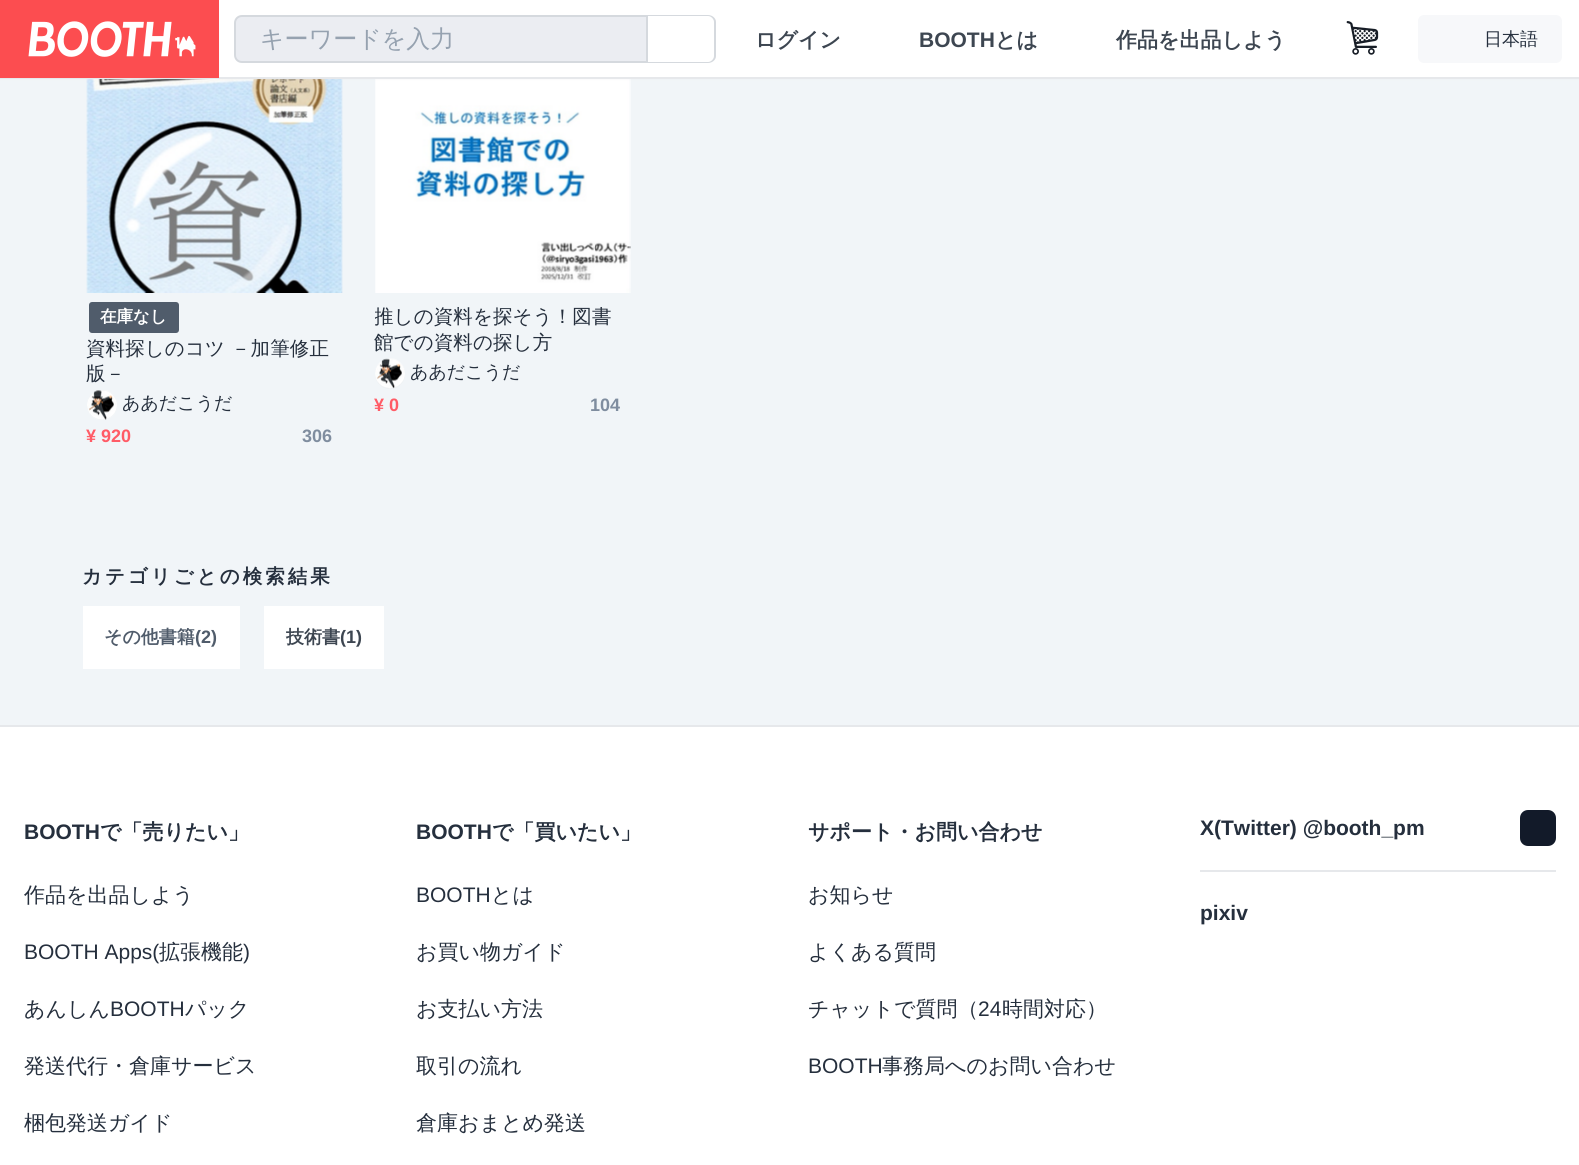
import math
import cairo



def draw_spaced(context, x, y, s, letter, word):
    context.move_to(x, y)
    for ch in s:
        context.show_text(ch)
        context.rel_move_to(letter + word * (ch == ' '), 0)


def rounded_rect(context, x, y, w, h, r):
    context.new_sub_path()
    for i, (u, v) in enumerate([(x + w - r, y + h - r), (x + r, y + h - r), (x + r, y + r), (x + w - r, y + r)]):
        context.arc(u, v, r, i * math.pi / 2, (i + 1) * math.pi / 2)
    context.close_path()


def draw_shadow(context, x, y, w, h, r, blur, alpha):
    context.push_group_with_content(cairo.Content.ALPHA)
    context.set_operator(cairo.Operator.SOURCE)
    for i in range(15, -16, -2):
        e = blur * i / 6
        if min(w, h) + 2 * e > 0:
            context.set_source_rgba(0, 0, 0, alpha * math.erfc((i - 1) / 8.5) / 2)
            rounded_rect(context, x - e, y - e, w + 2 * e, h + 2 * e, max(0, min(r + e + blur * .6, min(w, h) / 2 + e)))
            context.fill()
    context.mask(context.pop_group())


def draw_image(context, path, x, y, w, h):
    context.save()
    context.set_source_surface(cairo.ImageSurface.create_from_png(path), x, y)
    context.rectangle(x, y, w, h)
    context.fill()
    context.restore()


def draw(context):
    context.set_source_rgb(1, 1, 1)
    context.paint()
    context.set_source_rgb(241 / 255, 245 / 255, 248 / 255)
    context.rectangle(0, 79, 1579, 646)
    context.fill()
    draw_image(context, "images/3.png", 86, 79, 257, 214)
    draw_image(context, "images/5.png", 375, 79, 256, 214)
    context.set_source_rgb(230 / 255, 232 / 255, 235 / 255)
    draw_shadow(context, 0, 0, 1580, 78, 0, 1.5, 1)
    context.set_source_rgb(1, 1, 1)
    context.rectangle(219, 0, 1360, 77)
    context.fill()
    context.set_source_rgb(230 / 255, 232 / 255, 235 / 255)
    context.rectangle(0, 77, 1579, 2)
    context.fill()
    draw_image(context, "images/1.png", 0, 0, 219, 78)
    context.set_source_rgb(235 / 255, 237 / 255, 242 / 255)
    context.new_path()
    context.move_to(242, 16)
    context.line_to(647, 16)
    context.line_to(647, 62)
    context.line_to(242, 62)
    context.curve_to(238, 62, 235, 59, 235, 55)
    context.line_to(235, 23)
    context.curve_to(235, 19, 238, 16, 242, 16)
    context.close_path()
    context.fill_preserve()
    context.set_source_rgb(213 / 255, 217 / 255, 222 / 255)
    context.stroke()
    context.set_fill_rule(cairo.FillRule.EVEN_ODD)
    context.new_path()
    context.move_to(648, 15)
    context.line_to(708, 15)
    context.curve_to(712, 15, 716, 18, 716, 22)
    context.line_to(716, 56)
    context.curve_to(716, 60, 712, 63, 708, 63)
    context.line_to(648, 63)
    context.close_path()
    context.move_to(648, 16)
    context.line_to(708, 16)
    context.curve_to(711, 16, 714, 19, 714, 22)
    context.line_to(714, 56)
    context.curve_to(714, 59, 711, 62, 708, 62)
    context.line_to(648, 62)
    context.close_path()
    context.fill()
    draw_image(context, "images/2.png", 1346, 21, 33, 34)
    context.set_source_rgb(247 / 255, 248 / 255, 250 / 255)
    rounded_rect(context, 1418, 15, 144, 48, 6)
    context.fill()
    context.set_source_rgb(80 / 255, 92 / 255, 107 / 255)
    rounded_rect(context, 89, 302, 90, 31, 3)
    context.fill()
    context.arc(102, 405, 14, 0, 2 * math.pi)
    context.set_source_rgb(229 / 255, 233 / 255, 236 / 255)
    context.stroke()
    draw_image(context, "images/4.png", 87, 390, 30, 30)
    context.arc(390, 374, 14, 0, 2 * math.pi)
    context.stroke()
    draw_image(context, "images/6.png", 375, 358, 30, 31)
    context.set_source_rgb(1, 1, 1)
    context.rectangle(83, 606, 157, 63)
    context.fill()
    context.rectangle(264, 606, 120, 63)
    context.fill()
    context.set_source_rgb(230 / 255, 232 / 255, 235 / 255)
    context.rectangle(0, 725, 1579, 2)
    context.fill()
    context.set_source_rgb(18 / 255, 26 / 255, 41 / 255)
    rounded_rect(context, 1520, 810, 36, 36, 8)
    context.fill()
    context.set_source_rgb(230 / 255, 232 / 255, 235 / 255)
    context.rectangle(1200, 870, 356, 2)
    context.fill()
    context.select_font_face("WenQuanYi Zen Hei Medium")
    context.set_font_size(24)
    context.set_source_rgb(150 / 255, 162 / 255, 176 / 255)
    context.move_to(260, 47)
    context.show_text("キーワードを入力")
    context.select_font_face("WenQuanYi Zen Hei", cairo.FontSlant.NORMAL, cairo.FontWeight.BOLD)
    context.set_font_size(21)
    context.set_source_rgb(61 / 255, 70 / 255, 81 / 255)
    context.move_to(755, 47)
    context.show_text("ログイン")
    context.select_font_face("Liberation Sans", cairo.FontSlant.NORMAL, cairo.FontWeight.BOLD)
    context.move_to(919, 47)
    context.show_text("BOOTH")
    context.select_font_face("WenQuanYi Zen Hei", cairo.FontSlant.NORMAL, cairo.FontWeight.BOLD)
    context.move_to(995, 47)
    context.show_text("とは")
    context.move_to(1116, 47)
    context.show_text("作品を出品しよう")
    context.select_font_face("WenQuanYi Zen Hei Medium")
    context.set_font_size(18)
    context.set_source_rgb(37 / 255, 47 / 255, 61 / 255)
    context.move_to(1484, 45)
    context.show_text("日本語")
    context.select_font_face("WenQuanYi Zen Hei", cairo.FontSlant.NORMAL, cairo.FontWeight.BOLD)
    context.set_font_size(16.5)
    context.set_source_rgb(1, 1, 1)
    context.move_to(100, 322)
    context.show_text("在庫なし")
    context.select_font_face("WenQuanYi Zen Hei Medium")
    context.set_font_size(19.5)
    context.set_source_rgb(37 / 255, 47 / 255, 61 / 255)
    draw_spaced(context, 86, 355, "資料探しのコツ －加筆修正", 0.1, 0)
    draw_spaced(context, 86, 380, "版－", 0.1, 0)
    context.set_font_size(18)
    context.move_to(122, 409)
    context.show_text("ああだこうだ")
    context.select_font_face("Liberation Sans", cairo.FontSlant.NORMAL, cairo.FontWeight.BOLD)
    context.set_source_rgb(1, 92 / 255, 103 / 255)
    context.move_to(86, 442)
    context.show_text("¥ 920")
    context.set_source_rgb(127 / 255, 141 / 255, 159 / 255)
    context.move_to(302, 442)
    context.show_text("306")
    context.save()
    context.set_fill_rule(cairo.FillRule.WINDING)
    context.rectangle(375, 305, 255, 51)
    context.clip()
    context.select_font_face("WenQuanYi Zen Hei Medium")
    context.set_font_size(19.5)
    context.set_source_rgb(37 / 255, 47 / 255, 61 / 255)
    draw_spaced(context, 374, 323, "推しの資料を探そう！図書", 0.1, 0)
    context.restore()
    context.select_font_face("WenQuanYi Zen Hei Medium")
    context.set_font_size(19.5)
    context.set_source_rgb(37 / 255, 47 / 255, 61 / 255)
    draw_spaced(context, 374, 349, "館での資料の探し方", 0.1, 0)
    context.set_font_size(18)
    context.move_to(410, 378)
    context.show_text("ああだこうだ")
    context.select_font_face("Liberation Sans", cairo.FontSlant.NORMAL, cairo.FontWeight.BOLD)
    context.set_source_rgb(1, 92 / 255, 103 / 255)
    context.move_to(374, 411)
    context.show_text("¥ 0")
    context.set_source_rgb(127 / 255, 141 / 255, 159 / 255)
    context.move_to(590, 411)
    context.show_text("104")
    context.select_font_face("WenQuanYi Zen Hei", cairo.FontSlant.NORMAL, cairo.FontWeight.BOLD)
    context.set_font_size(19.5)
    context.set_source_rgb(37 / 255, 47 / 255, 61 / 255)
    draw_spaced(context, 82, 583, "カテゴリごとの検索結果", 3, 0)
    context.set_font_size(18)
    context.set_source_rgb(80 / 255, 92 / 255, 107 / 255)
    context.move_to(104, 643)
    context.show_text("その他書籍")
    context.select_font_face("Liberation Sans", cairo.FontSlant.NORMAL, cairo.FontWeight.BOLD)
    context.move_to(195, 643)
    context.show_text("(2)")
    context.select_font_face("WenQuanYi Zen Hei", cairo.FontSlant.NORMAL, cairo.FontWeight.BOLD)
    context.set_source_rgb(61 / 255, 70 / 255, 81 / 255)
    context.move_to(286, 643)
    context.show_text("技術書")
    context.select_font_face("Liberation Sans", cairo.FontSlant.NORMAL, cairo.FontWeight.BOLD)
    context.move_to(340, 643)
    context.show_text("(1)")
    context.set_font_size(21)
    context.set_source_rgb(37 / 255, 47 / 255, 61 / 255)
    context.move_to(24, 839)
    context.show_text("BOOTH")
    context.select_font_face("WenQuanYi Zen Hei", cairo.FontSlant.NORMAL, cairo.FontWeight.BOLD)
    context.move_to(100, 839)
    context.show_text("で「売りたい」")
    context.select_font_face("WenQuanYi Zen Hei Medium")
    context.move_to(24, 902)
    context.show_text("作品を出品しよう")
    context.select_font_face("Liberation Sans")
    context.move_to(24, 959)
    context.show_text("BOOTH Apps(")
    context.select_font_face("WenQuanYi Zen Hei Medium")
    context.move_to(159, 959)
    context.show_text("拡張機能")
    context.select_font_face("Liberation Sans")
    context.move_to(243, 959)
    context.show_text(")")
    context.select_font_face("WenQuanYi Zen Hei Medium")
    context.move_to(24, 1016)
    context.show_text("あんしん")
    context.select_font_face("Liberation Sans")
    context.move_to(110, 1016)
    context.show_text("BOOTH")
    context.select_font_face("WenQuanYi Zen Hei Medium")
    context.move_to(185, 1016)
    context.show_text("パック")
    context.move_to(24, 1073)
    context.show_text("発送代行・倉庫サービス")
    context.move_to(24, 1130)
    context.show_text("梱包発送ガイド")
    context.select_font_face("Liberation Sans", cairo.FontSlant.NORMAL, cairo.FontWeight.BOLD)
    context.move_to(416, 839)
    context.show_text("BOOTH")
    context.select_font_face("WenQuanYi Zen Hei", cairo.FontSlant.NORMAL, cairo.FontWeight.BOLD)
    context.move_to(492, 839)
    context.show_text("で「買いたい」")
    context.select_font_face("Liberation Sans")
    context.move_to(416, 902)
    context.show_text("BOOTH")
    context.select_font_face("WenQuanYi Zen Hei Medium")
    context.move_to(491, 902)
    context.show_text("とは")
    context.move_to(416, 959)
    context.show_text("お買い物ガイド")
    context.move_to(416, 1016)
    context.show_text("お支払い方法")
    context.move_to(416, 1073)
    context.show_text("取引の流れ")
    context.move_to(416, 1130)
    context.show_text("倉庫おまとめ発送")
    context.select_font_face("WenQuanYi Zen Hei", cairo.FontSlant.NORMAL, cairo.FontWeight.BOLD)
    context.move_to(808, 839)
    context.show_text("サポート・お問い合わせ")
    context.select_font_face("WenQuanYi Zen Hei Medium")
    context.move_to(808, 902)
    context.show_text("お知らせ")
    context.move_to(808, 959)
    context.show_text("よくある質問")
    context.move_to(808, 1016)
    context.show_text("チャットで質問（")
    context.select_font_face("Liberation Sans")
    context.move_to(978, 1016)
    context.show_text("24")
    context.select_font_face("WenQuanYi Zen Hei Medium")
    context.move_to(1002, 1016)
    context.show_text("時間対応）")
    context.select_font_face("Liberation Sans")
    context.move_to(808, 1073)
    context.show_text("BOOTH")
    context.select_font_face("WenQuanYi Zen Hei Medium")
    context.move_to(882, 1073)
    context.show_text("事務局へのお問い合わせ")
    context.select_font_face("Liberation Sans", cairo.FontSlant.NORMAL, cairo.FontWeight.BOLD)
    context.move_to(1200, 835)
    context.show_text("X(Twitter) @booth_pm")
    context.move_to(1200, 920)
    context.show_text("pixiv")


surface = cairo.ImageSurface(cairo.Format.RGB24, 1579, 1165)
context = cairo.Context(surface)
options = cairo.FontOptions()
options.set_hint_metrics(cairo.HintMetrics.OFF)
options.set_hint_style(cairo.HintStyle.NONE)
context.set_font_options(options)
context.set_miter_limit(4)
draw(context)
surface.write_to_png("out.png")
